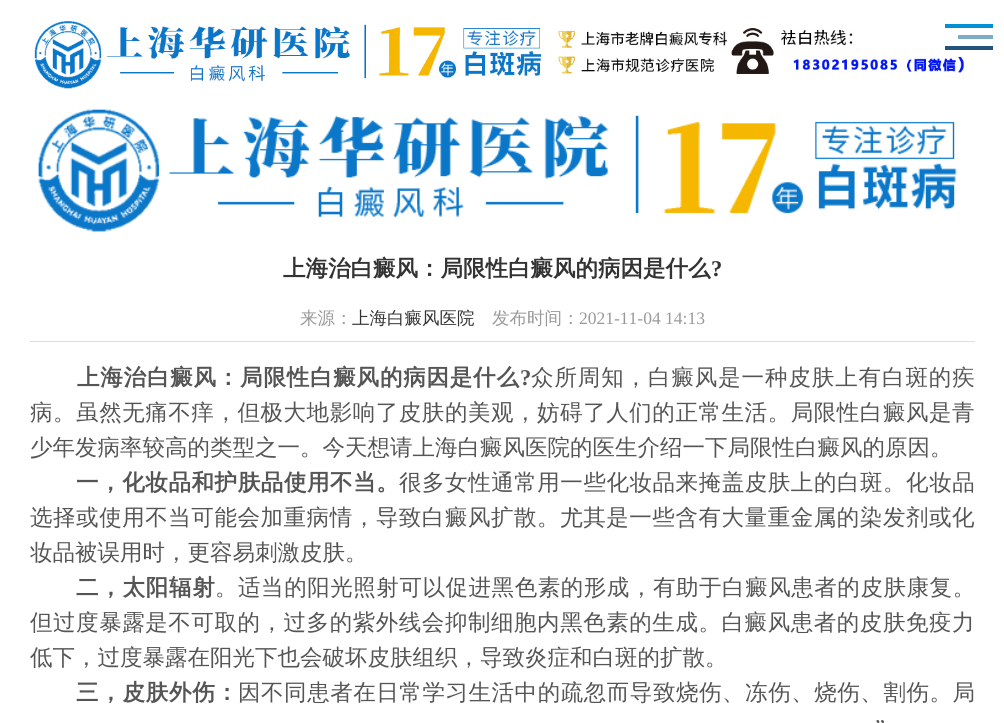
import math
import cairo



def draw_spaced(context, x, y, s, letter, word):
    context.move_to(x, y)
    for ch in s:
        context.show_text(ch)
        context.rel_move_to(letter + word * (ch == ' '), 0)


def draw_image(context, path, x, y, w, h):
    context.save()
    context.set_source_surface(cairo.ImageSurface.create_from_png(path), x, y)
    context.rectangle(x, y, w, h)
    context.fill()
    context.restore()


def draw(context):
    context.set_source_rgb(1, 1, 1)
    context.paint()
    draw_image(context, "images/1.png", 34, 21, 930, 68)
    context.set_source_rgb(123 / 255, 173 / 255, 199 / 255)
    context.rectangle(958, 35, 35, 4)
    context.fill()
    context.set_source_rgb(0, 144 / 255, 211 / 255)
    context.rectangle(945, 24, 48, 4)
    context.fill()
    context.set_source_rgb(35 / 255, 84 / 255, 125 / 255)
    context.rectangle(945, 46, 48, 4)
    context.fill()
    draw_image(context, "images/2.png", 38, 109, 919, 123)
    context.set_source_rgb(221 / 255, 221 / 255, 221 / 255)
    context.rectangle(30, 341, 945, 1)
    context.fill()
    context.select_font_face("WenQuanYi Zen Hei", cairo.FontSlant.NORMAL, cairo.FontWeight.BOLD)
    context.set_font_size(22.5)
    context.set_source_rgb(51 / 255, 51 / 255, 51 / 255)
    context.move_to(283, 276)
    context.show_text("上海治白癜风：局限性白癜风的病因是什么")
    context.select_font_face("Liberation Serif", cairo.FontSlant.NORMAL, cairo.FontWeight.BOLD)
    context.move_to(711, 276)
    context.show_text("?")
    context.select_font_face("WenQuanYi Zen Hei Medium")
    context.set_font_size(17.5)
    context.set_source_rgb(153 / 255, 153 / 255, 153 / 255)
    context.move_to(300, 324)
    context.show_text("来源：")
    context.set_source_rgb(51 / 255, 51 / 255, 51 / 255)
    context.move_to(352, 324)
    context.show_text("上海白癜风医院")
    context.set_source_rgb(153 / 255, 153 / 255, 153 / 255)
    context.move_to(492, 324)
    context.show_text("发布时间：")
    context.select_font_face("Liberation Serif")
    context.move_to(579, 324)
    context.show_text("2021-11-04 14:13")
    context.select_font_face("WenQuanYi Zen Hei", cairo.FontSlant.NORMAL, cairo.FontWeight.BOLD)
    context.set_font_size(22.5)
    context.set_source_rgb(85 / 255, 85 / 255, 85 / 255)
    draw_spaced(context, 77, 385, "上海治白癜风：局限性白癜风的病因是什么", 0.8, 0)
    context.select_font_face("Liberation Serif", cairo.FontSlant.NORMAL, cairo.FontWeight.BOLD)
    draw_spaced(context, 520, 385, "?", 0.8, 0)
    context.select_font_face("WenQuanYi Zen Hei Medium")
    draw_spaced(context, 531, 385, "众所周知，白癜风是一种皮肤上有白斑的疾", 0.9, 0)
    draw_spaced(context, 30, 420, "病。虽然无痛不痒，但极大地影响了皮肤的美观，妨碍了人们的正常生活。局限性白癜风是青", 0.55, 0)
    context.move_to(30, 455)
    context.show_text("少年发病率较高的类型之一。今天想请上海白癜风医院的医生介绍一下局限性白癜风的原因。")
    context.select_font_face("WenQuanYi Zen Hei", cairo.FontSlant.NORMAL, cairo.FontWeight.BOLD)
    draw_spaced(context, 76, 490, "一，化妆品和护肤品使用不当。", 0.6, 0)
    context.select_font_face("WenQuanYi Zen Hei Medium")
    draw_spaced(context, 399, 490, "很多女性通常用一些化妆品来掩盖皮肤上的白斑。化妆品", 0.55, 0)
    draw_spaced(context, 30, 525, "选择或使用不当可能会加重病情，导致白癜风扩散。尤其是一些含有大量重金属的染发剂或化", 0.55, 0)
    context.move_to(30, 560)
    context.show_text("妆品被误用时，更容易刺激皮肤。")
    context.select_font_face("WenQuanYi Zen Hei", cairo.FontSlant.NORMAL, cairo.FontWeight.BOLD)
    draw_spaced(context, 76, 595, "二，太阳辐射", 0.75, 0)
    context.select_font_face("WenQuanYi Zen Hei Medium")
    draw_spaced(context, 215, 595, "。适当的阳光照射可以促进黑色素的形成，有助于白癜风患者的皮肤康复。", 0.55, 0)
    draw_spaced(context, 30, 630, "但过度暴露是不可取的，过多的紫外线会抑制细胞内黑色素的生成。白癜风患者的皮肤免疫力", 0.55, 0)
    context.move_to(30, 665)
    context.show_text("低下，过度暴露在阳光下也会破坏皮肤组织，导致炎症和白斑的扩散。")
    context.select_font_face("WenQuanYi Zen Hei", cairo.FontSlant.NORMAL, cairo.FontWeight.BOLD)
    draw_spaced(context, 76, 700, "三，皮肤外伤：", 0.75, 0)
    context.select_font_face("WenQuanYi Zen Hei Medium")
    draw_spaced(context, 238, 700, "因不同患者在日常学习生活中的疏忽而导致烧伤、冻伤、烧伤、割伤。局", 0.55, 0)
    context.select_font_face("Liberation Serif")
    context.move_to(875, 735)
    context.show_text("”")


surface = cairo.ImageSurface(cairo.Format.RGB24, 1004, 723)
context = cairo.Context(surface)
options = cairo.FontOptions()
options.set_hint_metrics(cairo.HintMetrics.OFF)
options.set_hint_style(cairo.HintStyle.NONE)
context.set_font_options(options)
context.set_miter_limit(4)
draw(context)
surface.write_to_png("out.png")
